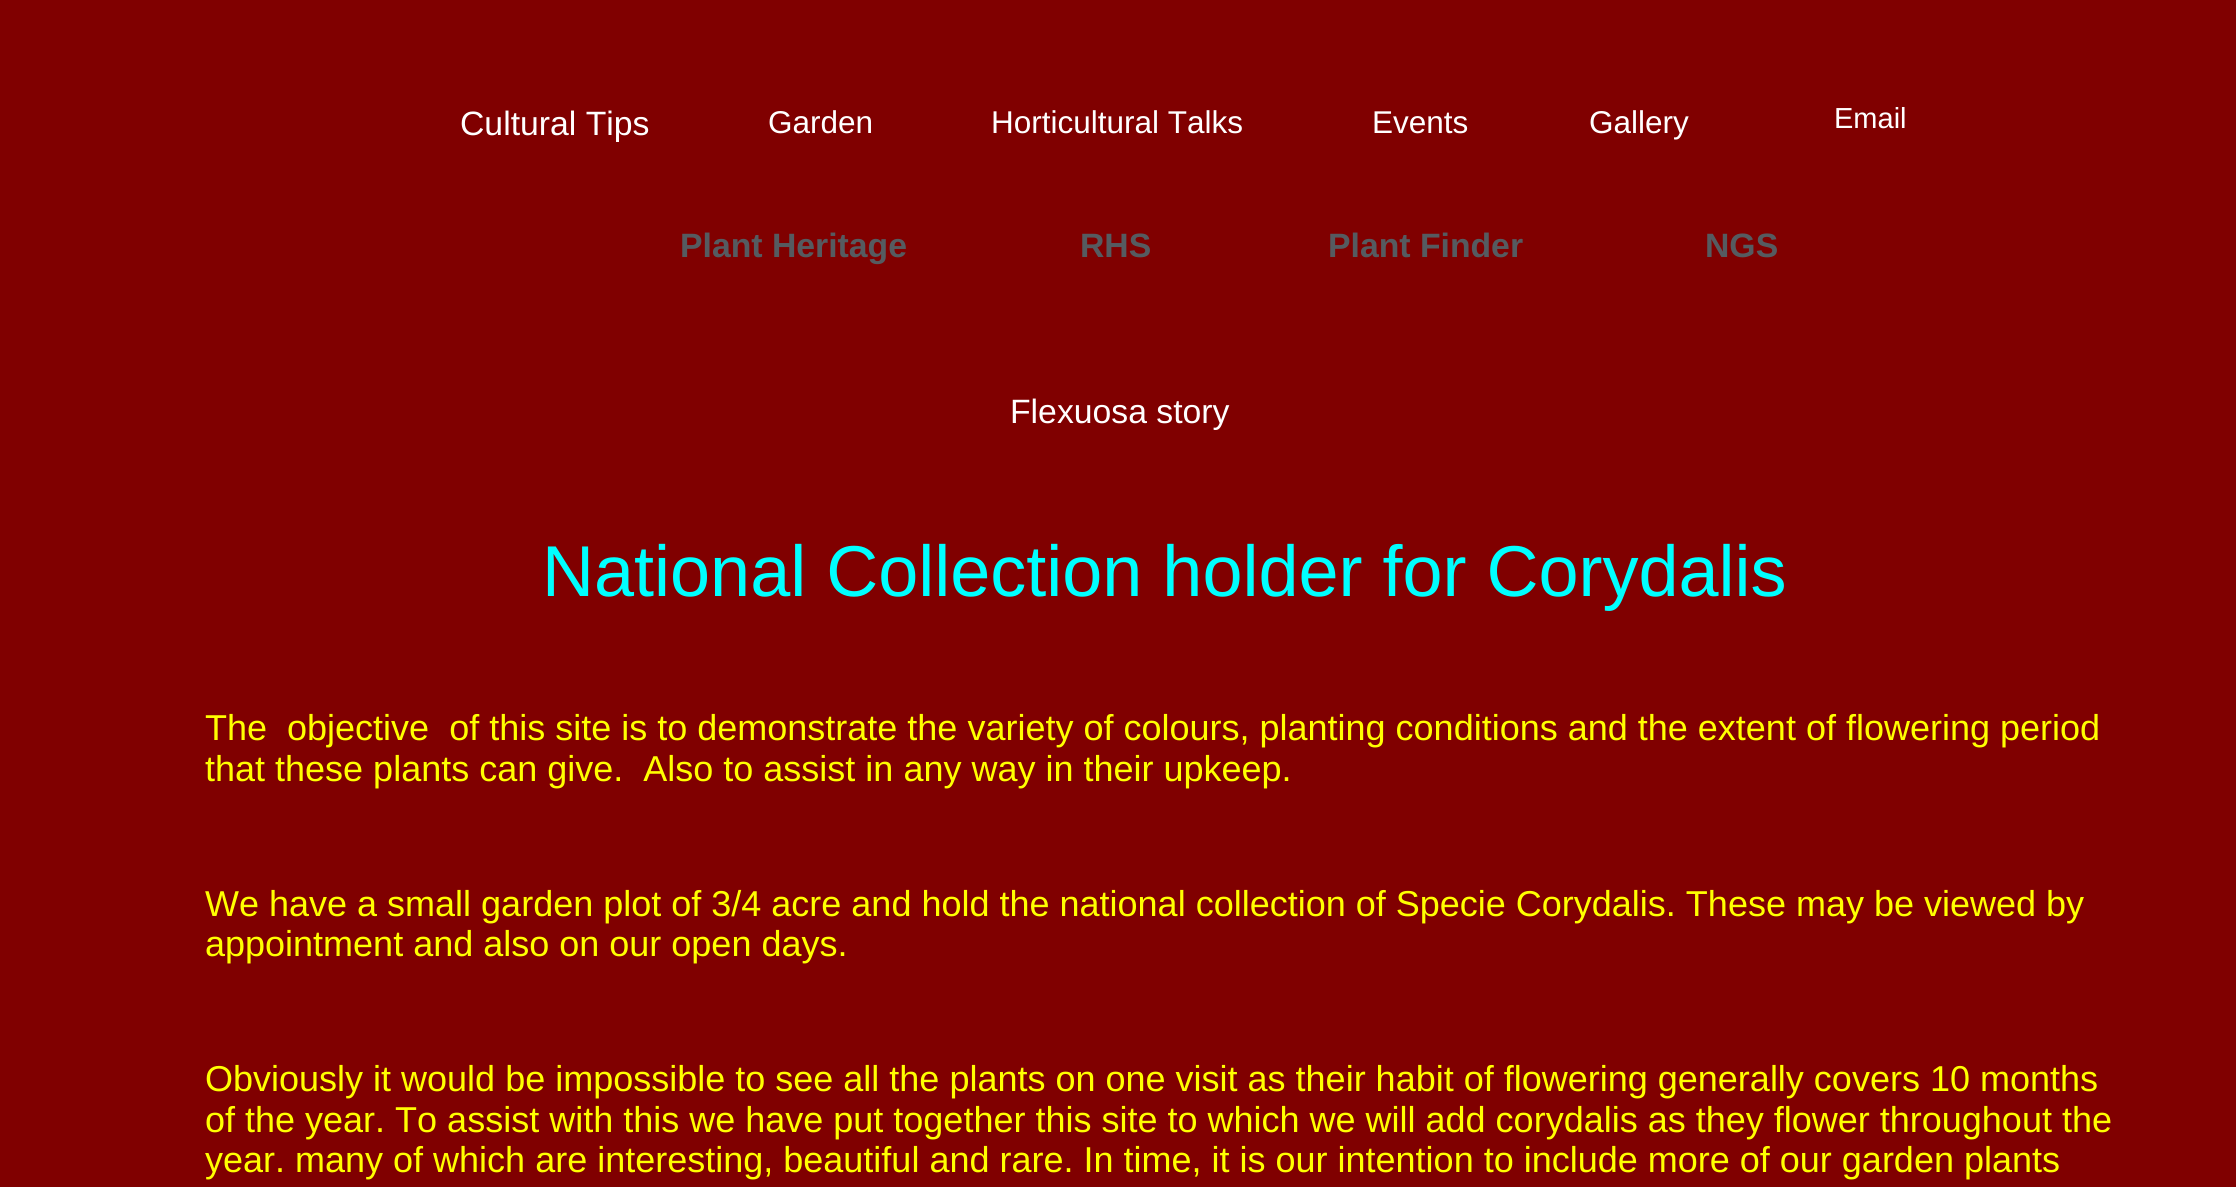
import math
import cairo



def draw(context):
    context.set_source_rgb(128 / 255, 0, 0)
    context.paint()
    context.select_font_face("Liberation Sans")
    context.set_font_size(33.75)
    context.set_source_rgb(1, 1, 1)
    context.move_to(460, 135)
    context.show_text("Cultural Tips")
    context.set_font_size(31.5)
    context.move_to(768, 133)
    context.show_text("Garden")
    context.move_to(991, 133)
    context.show_text("Horticultural Talks")
    context.move_to(1372, 133)
    context.show_text("Events")
    context.move_to(1589, 133)
    context.show_text("Gallery")
    context.set_font_size(29)
    context.move_to(1834, 128)
    context.show_text("Email")
    context.select_font_face("Liberation Sans", cairo.FontSlant.NORMAL, cairo.FontWeight.BOLD)
    context.set_font_size(33.75)
    context.set_source_rgb(85 / 255, 91 / 255, 96 / 255)
    context.move_to(680, 257)
    context.show_text("Plant Heritage")
    context.move_to(1080, 257)
    context.show_text("RHS")
    context.move_to(1328, 257)
    context.show_text("Plant Finder")
    context.move_to(1705, 257)
    context.show_text("NGS")
    context.select_font_face("Liberation Sans")
    context.set_source_rgb(1, 1, 1)
    context.move_to(1010, 423)
    context.show_text("Flexuosa story")
    context.set_font_size(72)
    context.set_source_rgb(0, 1, 1)
    context.move_to(542, 596)
    context.show_text("National Collection holder for Corydalis")
    context.set_font_size(36)
    context.set_source_rgb(1, 1, 0)
    context.move_to(205, 740)
    context.show_text("The  objective  of this site is to demonstrate the variety of colours, planting conditions and the extent of flowering period")
    context.move_to(205, 781)
    context.show_text("that these plants can give.  Also to assist in any way in their upkeep.")
    context.move_to(205, 916)
    context.show_text("We have a small garden plot of 3/4 acre and hold the national collection of Specie Corydalis. These may be viewed by")
    context.move_to(205, 956)
    context.show_text("appointment and also on our open days.")
    context.move_to(205, 1091)
    context.show_text("Obviously it would be impossible to see all the plants on one visit as their habit of flowering generally covers 10 months")
    context.move_to(205, 1132)
    context.show_text("of the year. To assist with this we have put together this site to which we will add corydalis as they flower throughout the")
    context.move_to(205, 1172)
    context.show_text("year. many of which are interesting, beautiful and rare. In time, it is our intention to include more of our garden plants")


surface = cairo.ImageSurface(cairo.Format.RGB24, 2236, 1187)
context = cairo.Context(surface)
options = cairo.FontOptions()
options.set_hint_metrics(cairo.HintMetrics.OFF)
options.set_hint_style(cairo.HintStyle.NONE)
context.set_font_options(options)
context.set_miter_limit(4)
draw(context)
surface.write_to_png("out.png")
